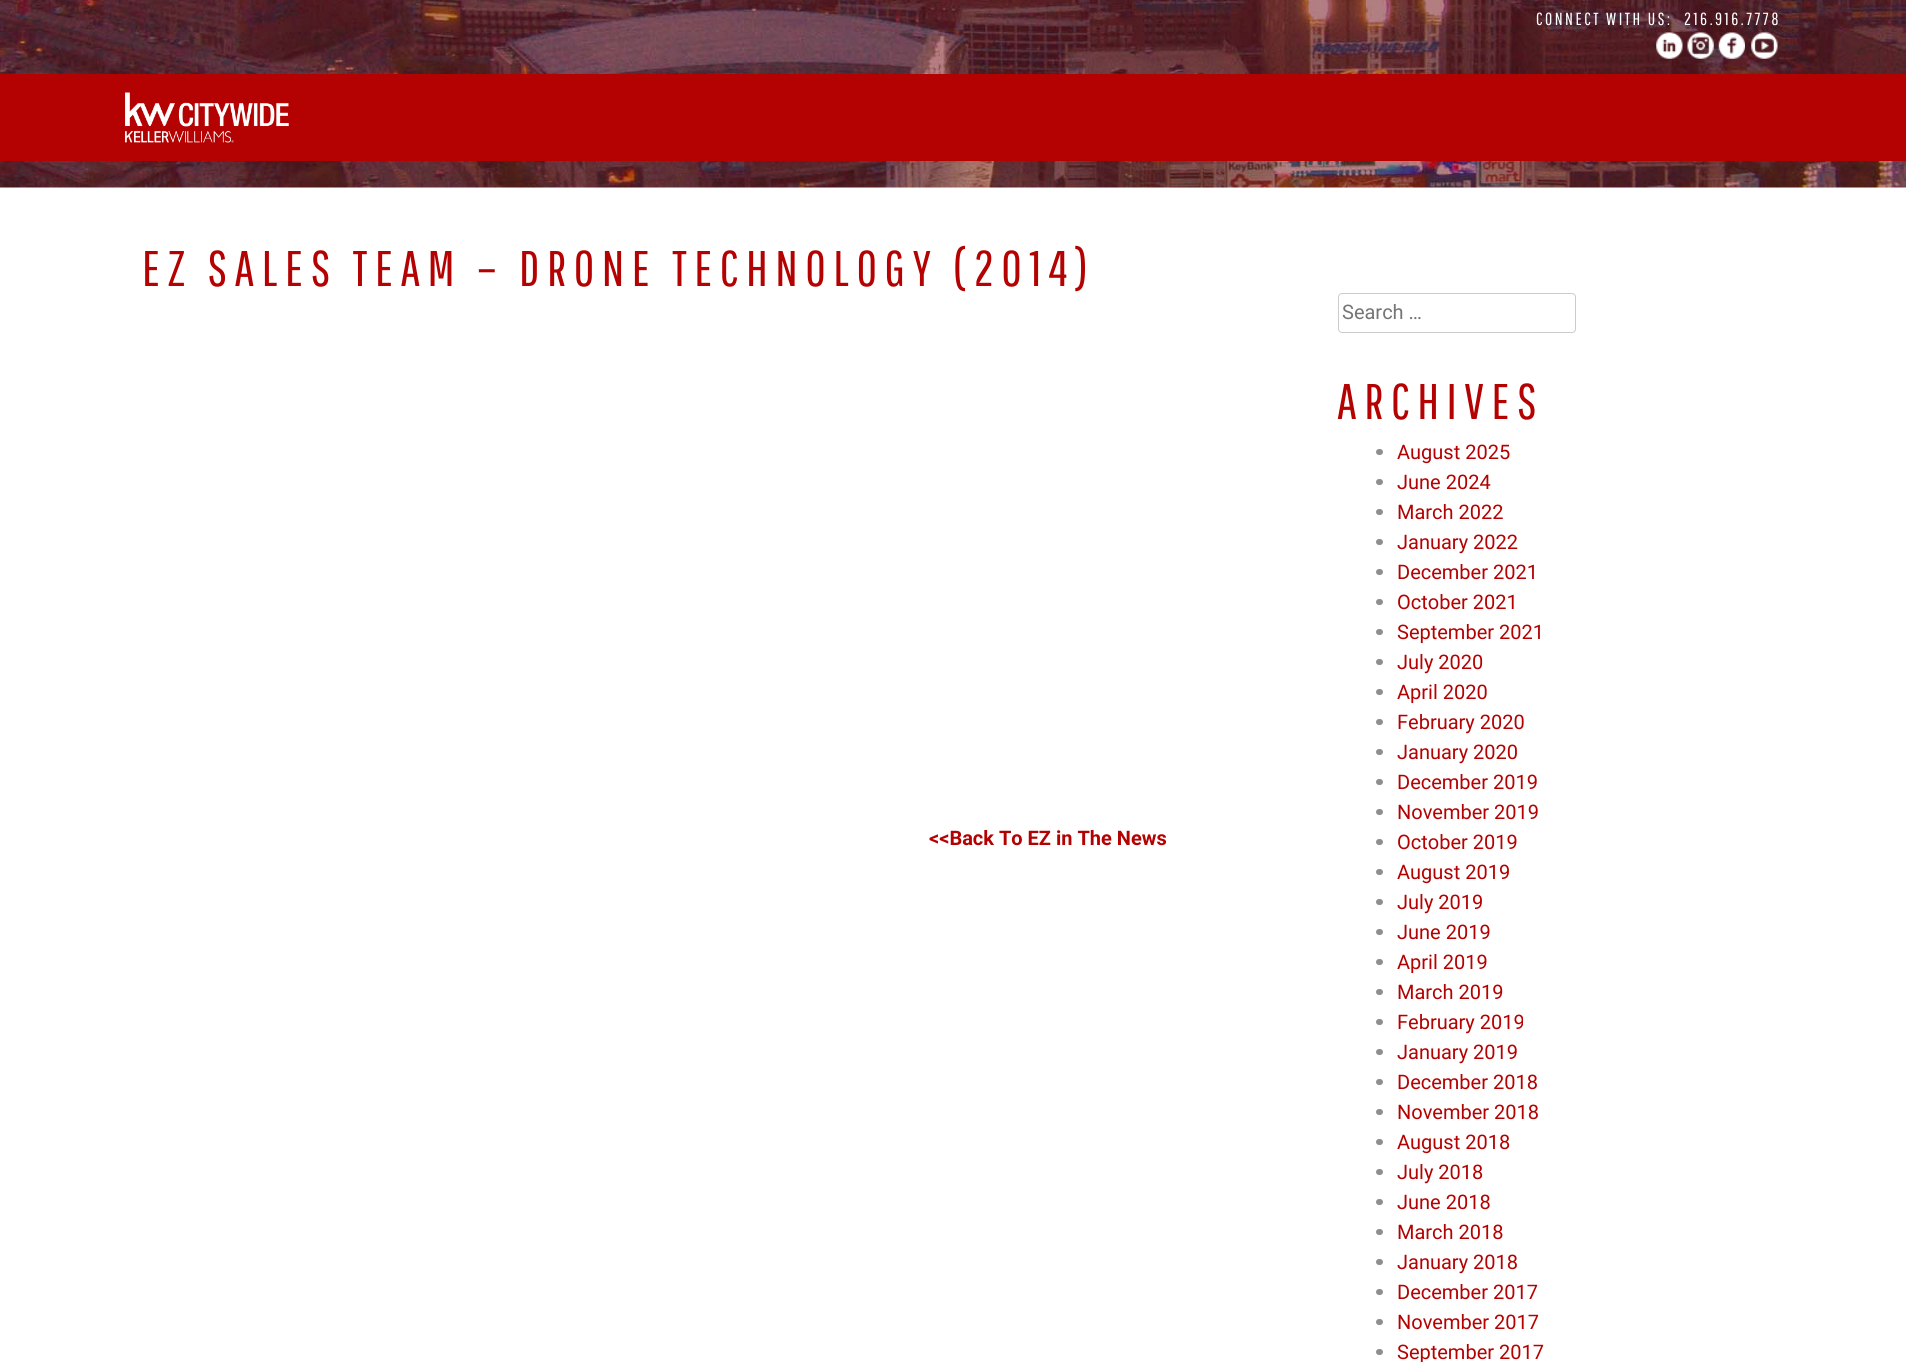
import math
import cairo



def draw_spaced(context, x, y, s, letter, word):
    context.move_to(x, y)
    for ch in s:
        context.show_text(ch)
        context.rel_move_to(letter + word * (ch == ' '), 0)


def rounded_rect(context, x, y, w, h, r):
    context.new_sub_path()
    for i, (u, v) in enumerate([(x + w - r, y + h - r), (x + r, y + h - r), (x + r, y + r), (x + w - r, y + r)]):
        context.arc(u, v, r, i * math.pi / 2, (i + 1) * math.pi / 2)
    context.close_path()


def draw_image(context, path, x, y, w, h):
    context.save()
    context.set_source_surface(cairo.ImageSurface.create_from_png(path), x, y)
    context.rectangle(x, y, w, h)
    context.fill()
    context.restore()


def draw(context):
    context.set_source_rgb(1, 1, 1)
    context.paint()
    draw_image(context, "images/1.png", 0, 0, 1906, 188)
    draw_image(context, "images/2.png", 1656, 32, 27, 27)
    draw_image(context, "images/3.png", 1687, 32, 27, 27)
    draw_image(context, "images/4.png", 1718, 32, 27, 27)
    draw_image(context, "images/5.png", 1751, 32, 27, 27)
    context.set_source_rgb(180 / 255, 1 / 255, 1 / 255)
    context.rectangle(0, 74, 1906, 87)
    context.fill()
    draw_image(context, "images/6.png", 125, 92, 164, 51)
    rounded_rect(context, 1338.5, 293.5, 237, 39, 3.5)
    context.set_source_rgb(204 / 255, 204 / 255, 204 / 255)
    context.set_line_width(1)
    context.stroke()
    context.set_source_rgb(142 / 255, 142 / 255, 142 / 255)
    rounded_rect(context, 1376, 449, 7, 6, 3)
    context.fill()
    rounded_rect(context, 1376, 479, 7, 6, 3)
    context.fill()
    rounded_rect(context, 1376, 509, 7, 6, 3)
    context.fill()
    rounded_rect(context, 1376, 539, 7, 6, 3)
    context.fill()
    rounded_rect(context, 1376, 569, 7, 6, 3)
    context.fill()
    rounded_rect(context, 1376, 599, 7, 6, 3)
    context.fill()
    rounded_rect(context, 1376, 629, 7, 6, 3)
    context.fill()
    rounded_rect(context, 1376, 659, 7, 6, 3)
    context.fill()
    rounded_rect(context, 1376, 689, 7, 6, 3)
    context.fill()
    rounded_rect(context, 1376, 719, 7, 6, 3)
    context.fill()
    rounded_rect(context, 1376, 749, 7, 6, 3)
    context.fill()
    rounded_rect(context, 1376, 779, 7, 6, 3)
    context.fill()
    rounded_rect(context, 1376, 809, 7, 6, 3)
    context.fill()
    rounded_rect(context, 1376, 839, 7, 6, 3)
    context.fill()
    rounded_rect(context, 1376, 869, 7, 6, 3)
    context.fill()
    rounded_rect(context, 1376, 899, 7, 6, 3)
    context.fill()
    rounded_rect(context, 1376, 929, 7, 6, 3)
    context.fill()
    rounded_rect(context, 1376, 959, 7, 6, 3)
    context.fill()
    rounded_rect(context, 1376, 989, 7, 6, 3)
    context.fill()
    rounded_rect(context, 1376, 1019, 7, 6, 3)
    context.fill()
    rounded_rect(context, 1376, 1049, 7, 6, 3)
    context.fill()
    rounded_rect(context, 1376, 1079, 7, 6, 3)
    context.fill()
    rounded_rect(context, 1376, 1109, 7, 6, 3)
    context.fill()
    rounded_rect(context, 1376, 1139, 7, 6, 3)
    context.fill()
    rounded_rect(context, 1376, 1169, 7, 6, 3)
    context.fill()
    rounded_rect(context, 1376, 1199, 7, 6, 3)
    context.fill()
    rounded_rect(context, 1376, 1229, 7, 6, 3)
    context.fill()
    rounded_rect(context, 1376, 1259, 7, 6, 3)
    context.fill()
    rounded_rect(context, 1376, 1289, 7, 6, 3)
    context.fill()
    rounded_rect(context, 1376, 1319, 7, 6, 3)
    context.fill()
    rounded_rect(context, 1376, 1349, 7, 6, 3)
    context.fill()
    context.select_font_face("Pathway Gothic One")
    context.set_font_size(17.5)
    context.set_source_rgb(1, 1, 1)
    draw_spaced(context, 1536, 25, "CONNECT WITH US:", 2.5, 0)
    draw_spaced(context, 1684, 25, "216.916.7778", 2.5, 0)
    context.set_font_size(50)
    context.set_source_rgb(180 / 255, 1 / 255, 1 / 255)
    draw_spaced(context, 142, 286, "EZ SALES TEAM – DRONE TECHNOLOGY (2014)", 7.5, 0)
    context.select_font_face("Roboto", cairo.FontSlant.NORMAL, cairo.FontWeight.BOLD)
    context.set_font_size(20)
    context.move_to(929, 845)
    context.show_text("<<Back To EZ in The News")
    context.select_font_face("Roboto")
    context.set_source_rgb(117 / 255, 117 / 255, 117 / 255)
    context.move_to(1342, 319)
    context.show_text("Search …")
    context.select_font_face("Pathway Gothic One")
    context.set_font_size(50)
    context.set_source_rgb(180 / 255, 1 / 255, 1 / 255)
    draw_spaced(context, 1337, 419, "ARCHIVES", 7.5, 0)
    context.select_font_face("Roboto")
    context.set_font_size(20)
    context.move_to(1397, 459)
    context.show_text("August 2025")
    context.move_to(1397, 489)
    context.show_text("June 2024")
    context.move_to(1397, 519)
    context.show_text("March 2022")
    context.move_to(1397, 549)
    context.show_text("January 2022")
    context.move_to(1397, 579)
    context.show_text("December 2021")
    context.move_to(1397, 609)
    context.show_text("October 2021")
    context.move_to(1397, 639)
    context.show_text("September 2021")
    context.move_to(1397, 669)
    context.show_text("July 2020")
    context.move_to(1397, 699)
    context.show_text("April 2020")
    context.move_to(1397, 729)
    context.show_text("February 2020")
    context.move_to(1397, 759)
    context.show_text("January 2020")
    context.move_to(1397, 789)
    context.show_text("December 2019")
    context.move_to(1397, 819)
    context.show_text("November 2019")
    context.move_to(1397, 849)
    context.show_text("October 2019")
    context.move_to(1397, 879)
    context.show_text("August 2019")
    context.move_to(1397, 909)
    context.show_text("July 2019")
    context.move_to(1397, 939)
    context.show_text("June 2019")
    context.move_to(1397, 969)
    context.show_text("April 2019")
    context.move_to(1397, 999)
    context.show_text("March 2019")
    context.move_to(1397, 1029)
    context.show_text("February 2019")
    context.move_to(1397, 1059)
    context.show_text("January 2019")
    context.move_to(1397, 1089)
    context.show_text("December 2018")
    context.move_to(1397, 1119)
    context.show_text("November 2018")
    context.move_to(1397, 1149)
    context.show_text("August 2018")
    context.move_to(1397, 1179)
    context.show_text("July 2018")
    context.move_to(1397, 1209)
    context.show_text("June 2018")
    context.move_to(1397, 1239)
    context.show_text("March 2018")
    context.move_to(1397, 1269)
    context.show_text("January 2018")
    context.move_to(1397, 1299)
    context.show_text("December 2017")
    context.move_to(1397, 1329)
    context.show_text("November 2017")
    context.move_to(1397, 1359)
    context.show_text("September 2017")


surface = cairo.ImageSurface(cairo.Format.RGB24, 1906, 1362)
context = cairo.Context(surface)
options = cairo.FontOptions()
options.set_hint_metrics(cairo.HintMetrics.OFF)
options.set_hint_style(cairo.HintStyle.NONE)
context.set_font_options(options)
context.set_miter_limit(4)
draw(context)
surface.write_to_png("out.png")
